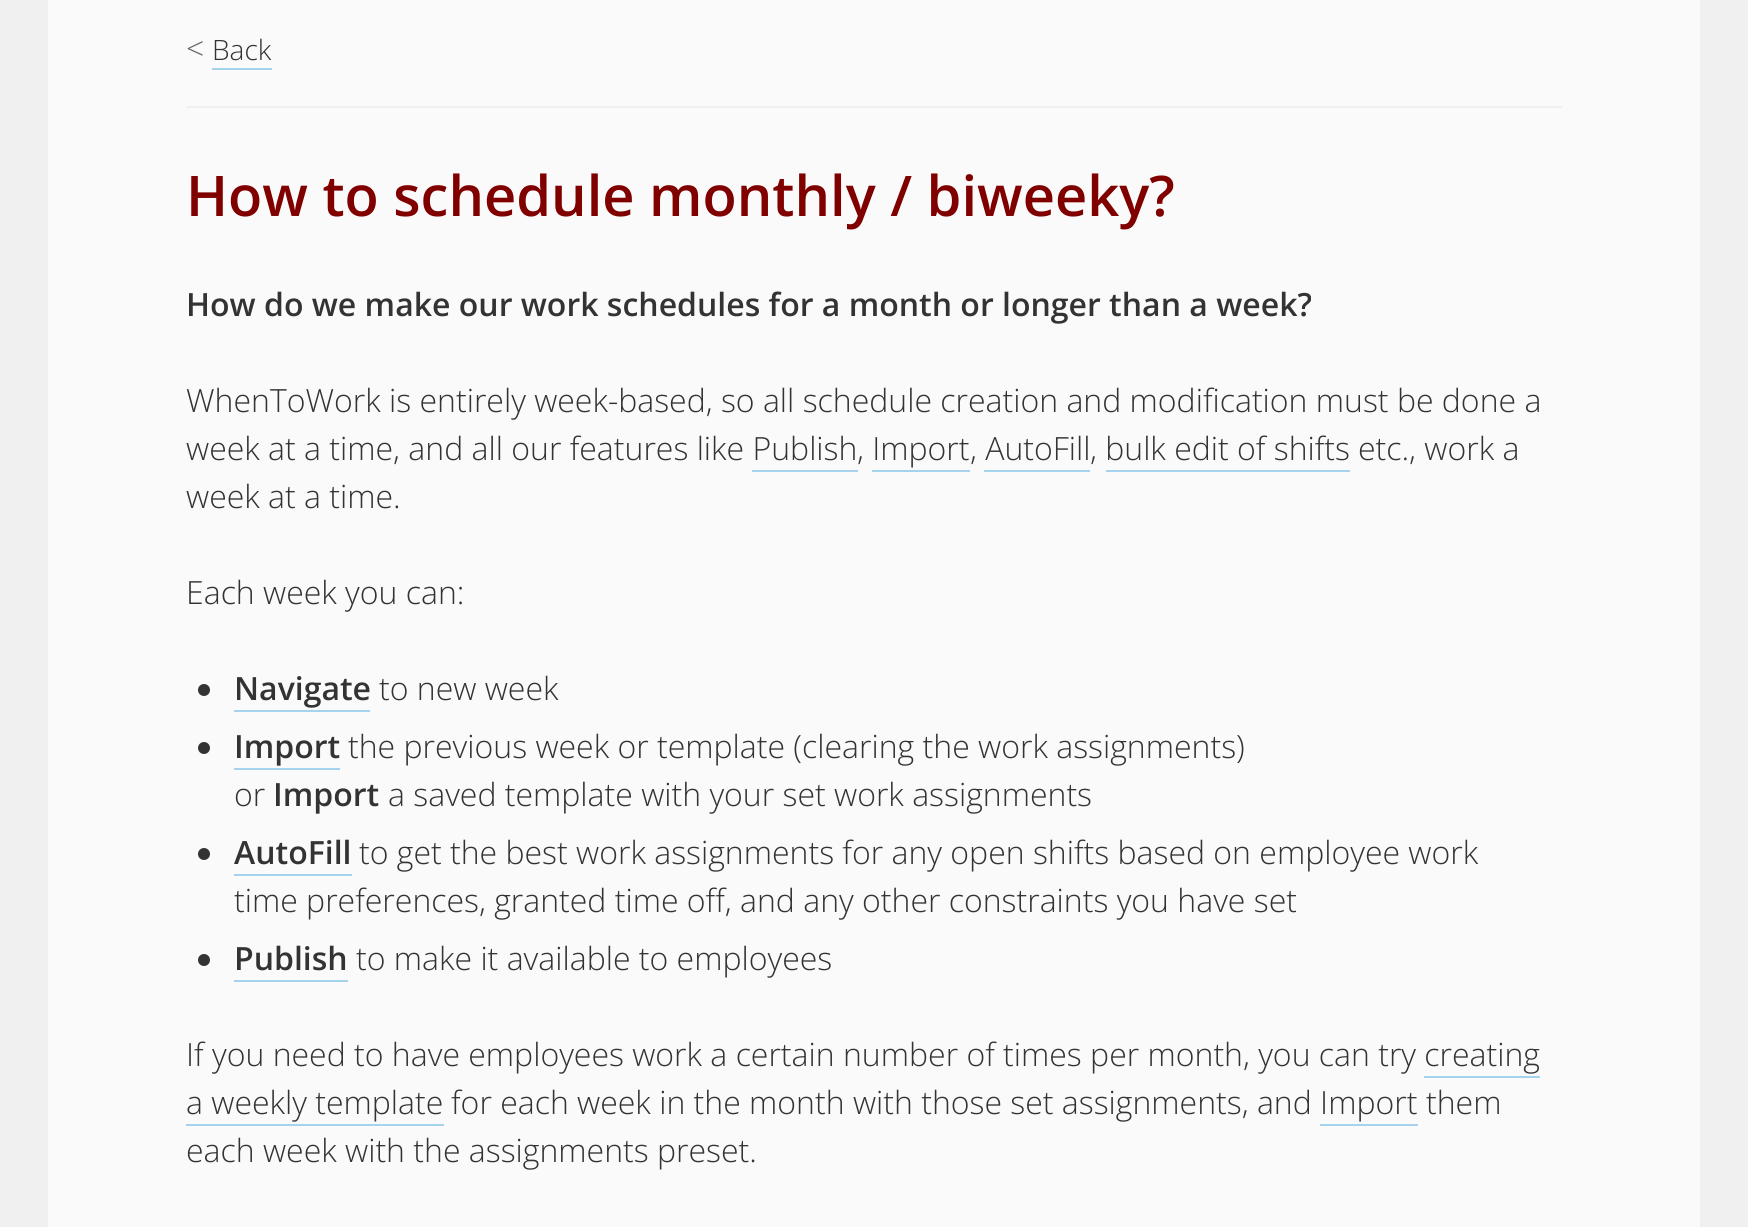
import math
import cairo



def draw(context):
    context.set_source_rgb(240 / 255, 240 / 255, 240 / 255)
    context.paint()
    context.set_source_rgb(250 / 255, 250 / 255, 250 / 255)
    context.rectangle(48, 0, 1652, 1227)
    context.fill()
    context.set_source_rgb(240 / 255, 240 / 255, 240 / 255)
    context.rectangle(186, 106, 1376, 2)
    context.fill()
    context.set_source_rgb(165 / 255, 211 / 255, 237 / 255)
    context.rectangle(212, 68, 60, 2)
    context.fill()
    context.rectangle(752, 470, 106, 2)
    context.fill()
    context.rectangle(872, 470, 98, 2)
    context.fill()
    context.rectangle(984, 470, 106, 2)
    context.fill()
    context.rectangle(1106, 470, 244, 2)
    context.fill()
    context.set_source_rgb(51 / 255, 51 / 255, 51 / 255)
    context.arc(204, 690, 6, 0, 2 * math.pi)
    context.fill()
    context.set_source_rgb(165 / 255, 211 / 255, 237 / 255)
    context.rectangle(234, 710, 136, 2)
    context.fill()
    context.set_source_rgb(51 / 255, 51 / 255, 51 / 255)
    context.arc(204, 748, 6, 0, 2 * math.pi)
    context.fill()
    context.set_source_rgb(165 / 255, 211 / 255, 237 / 255)
    context.rectangle(234, 768, 106, 2)
    context.fill()
    context.set_source_rgb(51 / 255, 51 / 255, 51 / 255)
    context.arc(204, 854, 6, 0, 2 * math.pi)
    context.fill()
    context.set_source_rgb(165 / 255, 211 / 255, 237 / 255)
    context.rectangle(234, 874, 118, 2)
    context.fill()
    context.set_source_rgb(51 / 255, 51 / 255, 51 / 255)
    context.arc(204, 960, 6, 0, 2 * math.pi)
    context.fill()
    context.set_source_rgb(165 / 255, 211 / 255, 237 / 255)
    context.rectangle(234, 980, 114, 2)
    context.fill()
    context.rectangle(1424, 1076, 116, 2)
    context.fill()
    context.rectangle(186, 1124, 258, 2)
    context.fill()
    context.rectangle(1320, 1124, 98, 2)
    context.fill()
    context.select_font_face("Open Sans Light")
    context.set_font_size(32)
    context.set_source_rgb(102 / 255, 102 / 255, 102 / 255)
    context.move_to(186, 60)
    context.show_text("<")
    context.set_font_size(28)
    context.set_source_rgb(51 / 255, 51 / 255, 51 / 255)
    context.move_to(212, 60)
    context.show_text("Back")
    context.select_font_face("Open Sans SemiBold")
    context.set_font_size(56)
    context.set_source_rgb(128 / 255, 0, 0)
    context.move_to(186, 216)
    context.show_text("How to schedule monthly / biweeky?")
    context.set_font_size(32)
    context.set_source_rgb(51 / 255, 51 / 255, 51 / 255)
    context.move_to(186, 316)
    context.show_text("How do we make our work schedules for a month or longer than a week?")
    context.select_font_face("Open Sans Light")
    context.move_to(186, 412)
    context.show_text("WhenToWork is entirely week-based, so all schedule creation and modification must be done a")
    context.move_to(186, 460)
    context.show_text("week at a time, and all our features like Publish")
    context.move_to(857, 460)
    context.show_text(", Import")
    context.move_to(970, 460)
    context.show_text(", AutoFill")
    context.move_to(1090, 460)
    context.show_text(", bulk edit of shifts")
    context.move_to(1358, 460)
    context.show_text("etc., work a")
    context.move_to(186, 508)
    context.show_text("week at a time.")
    context.move_to(186, 604)
    context.show_text("Each week you can:")
    context.select_font_face("Open Sans SemiBold")
    context.move_to(234, 700)
    context.show_text("Navigate")
    context.select_font_face("Open Sans Light")
    context.move_to(379, 700)
    context.show_text("to new week")
    context.select_font_face("Open Sans SemiBold")
    context.move_to(234, 758)
    context.show_text("Import")
    context.select_font_face("Open Sans Light")
    context.move_to(348, 758)
    context.show_text("the previous week or template (clearing the work assignments)")
    context.move_to(234, 806)
    context.show_text("or")
    context.select_font_face("Open Sans SemiBold")
    context.move_to(273, 806)
    context.show_text("Import")
    context.select_font_face("Open Sans Light")
    context.move_to(388, 806)
    context.show_text("a saved template with your set work assignments")
    context.select_font_face("Open Sans SemiBold")
    context.move_to(234, 864)
    context.show_text("AutoFill")
    context.select_font_face("Open Sans Light")
    context.move_to(359, 864)
    context.show_text("to get the best work assignments for any open shifts based on employee work")
    context.move_to(234, 912)
    context.show_text("time preferences, granted time off, and any other constraints you have set")
    context.select_font_face("Open Sans SemiBold")
    context.move_to(234, 970)
    context.show_text("Publish")
    context.select_font_face("Open Sans Light")
    context.move_to(356, 970)
    context.show_text("to make it available to employees")
    context.move_to(186, 1066)
    context.show_text("If you need to have employees work a certain number of times per month, you can try creating")
    context.move_to(186, 1114)
    context.show_text("a weekly template")
    context.move_to(451, 1114)
    context.show_text("for each week in the month with those set assignments, and Import")
    context.move_to(1426, 1114)
    context.show_text("them")
    context.move_to(186, 1162)
    context.show_text("each week with the assignments preset.")


surface = cairo.ImageSurface(cairo.Format.RGB24, 1748, 1227)
context = cairo.Context(surface)
options = cairo.FontOptions()
options.set_hint_metrics(cairo.HintMetrics.OFF)
options.set_hint_style(cairo.HintStyle.NONE)
context.set_font_options(options)
context.set_miter_limit(4)
draw(context)
surface.write_to_png("out.png")
